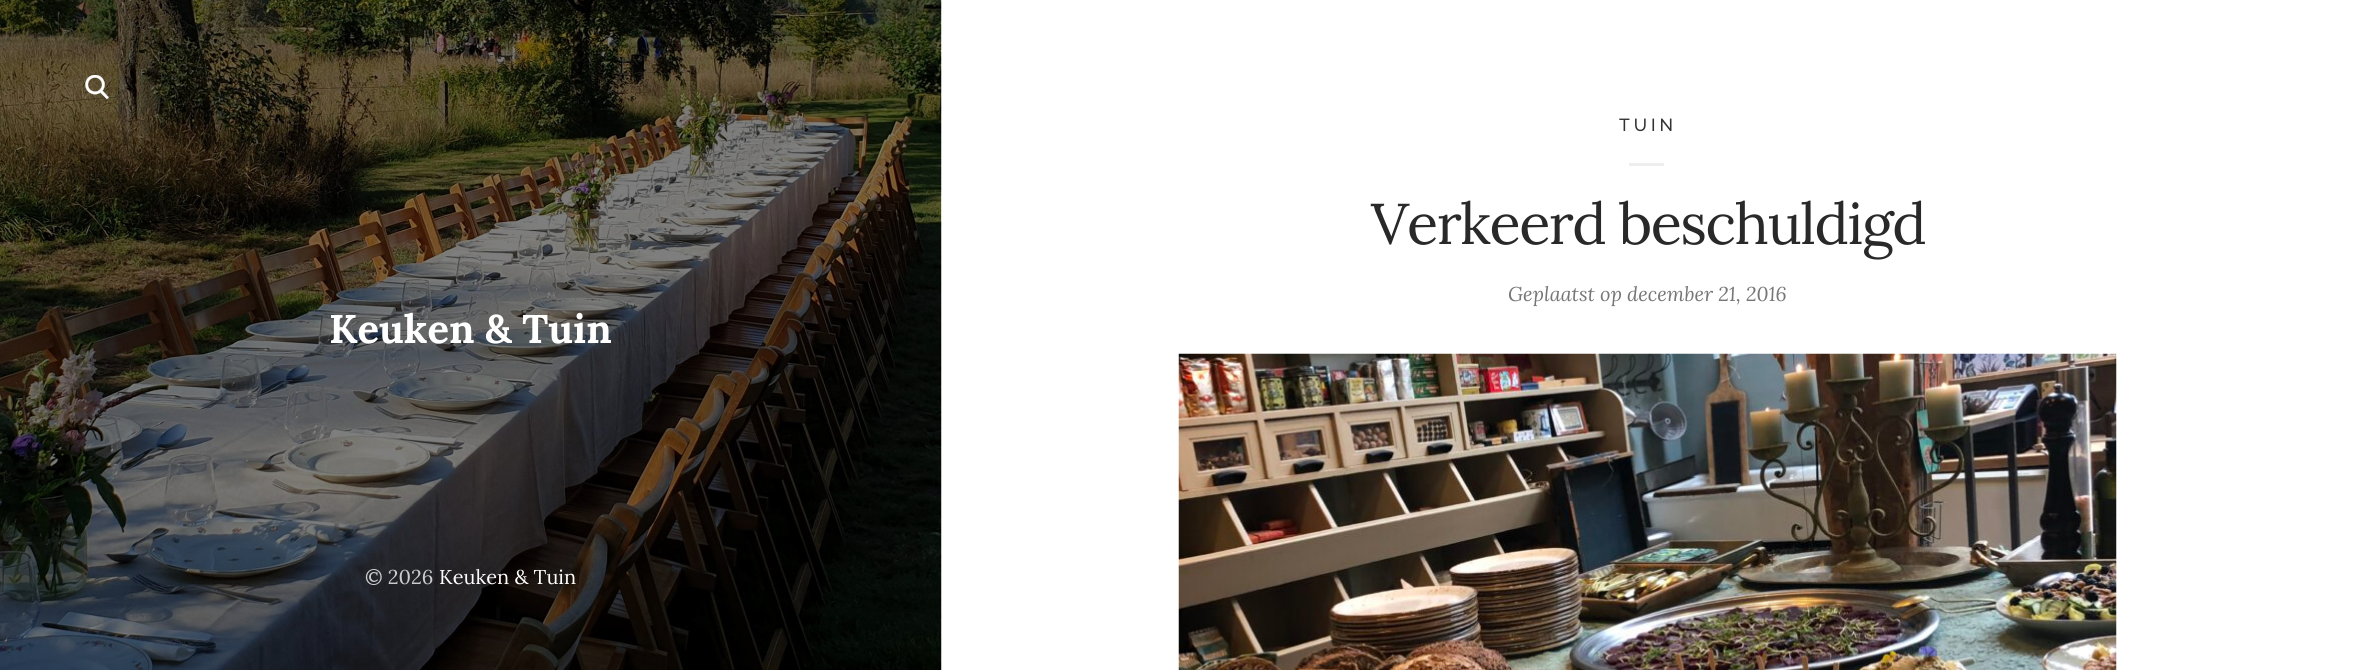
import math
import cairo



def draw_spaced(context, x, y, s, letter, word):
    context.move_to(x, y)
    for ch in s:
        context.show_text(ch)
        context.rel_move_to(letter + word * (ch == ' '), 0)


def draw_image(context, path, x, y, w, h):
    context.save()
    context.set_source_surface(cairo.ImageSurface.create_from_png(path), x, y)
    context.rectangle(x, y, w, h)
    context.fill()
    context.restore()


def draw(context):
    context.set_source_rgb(1, 1, 1)
    context.paint()
    context.set_source_rgb(238 / 255, 238 / 255, 238 / 255)
    context.rectangle(1629, 163, 35, 3)
    context.fill()
    draw_image(context, "images/1.png", 1178, 353, 939, 317)
    draw_image(context, "images/2.png", 0, 0, 942, 670)
    draw_image(context, "images/3.png", 85, 75, 24, 24)
    context.select_font_face("Raleway Medium")
    context.set_font_size(17.5)
    context.set_source_rgb(51 / 255, 51 / 255, 51 / 255)
    draw_spaced(context, 1619, 131, "TUIN", 4, 0)
    context.select_font_face("Lora")
    context.set_font_size(57.5)
    context.set_source_rgb(41 / 255, 41 / 255, 41 / 255)
    draw_spaced(context, 1371, 244, "Verkeerd beschuldigd", -1.5, 0)
    context.select_font_face("Lora", cairo.FontSlant.ITALIC)
    context.set_font_size(20)
    context.set_source_rgb(118 / 255, 118 / 255, 118 / 255)
    context.move_to(1508, 301)
    context.show_text("Geplaatst op december 21, 2016")
    context.select_font_face("Lora", cairo.FontSlant.NORMAL, cairo.FontWeight.BOLD)
    context.set_font_size(40)
    context.set_source_rgb(1, 1, 1)
    context.move_to(329, 343)
    context.show_text("Keuken & Tuin")
    context.select_font_face("Lora")
    context.set_font_size(20)
    context.set_source_rgb(204 / 255, 204 / 255, 204 / 255)
    context.move_to(365, 584)
    context.show_text("© 2026")
    context.set_source_rgb(1, 1, 1)
    context.move_to(439, 584)
    context.show_text("Keuken & Tuin")


surface = cairo.ImageSurface(cairo.Format.RGB24, 2353, 670)
context = cairo.Context(surface)
options = cairo.FontOptions()
options.set_hint_metrics(cairo.HintMetrics.OFF)
options.set_hint_style(cairo.HintStyle.NONE)
context.set_font_options(options)
context.set_miter_limit(4)
draw(context)
surface.write_to_png("out.png")
